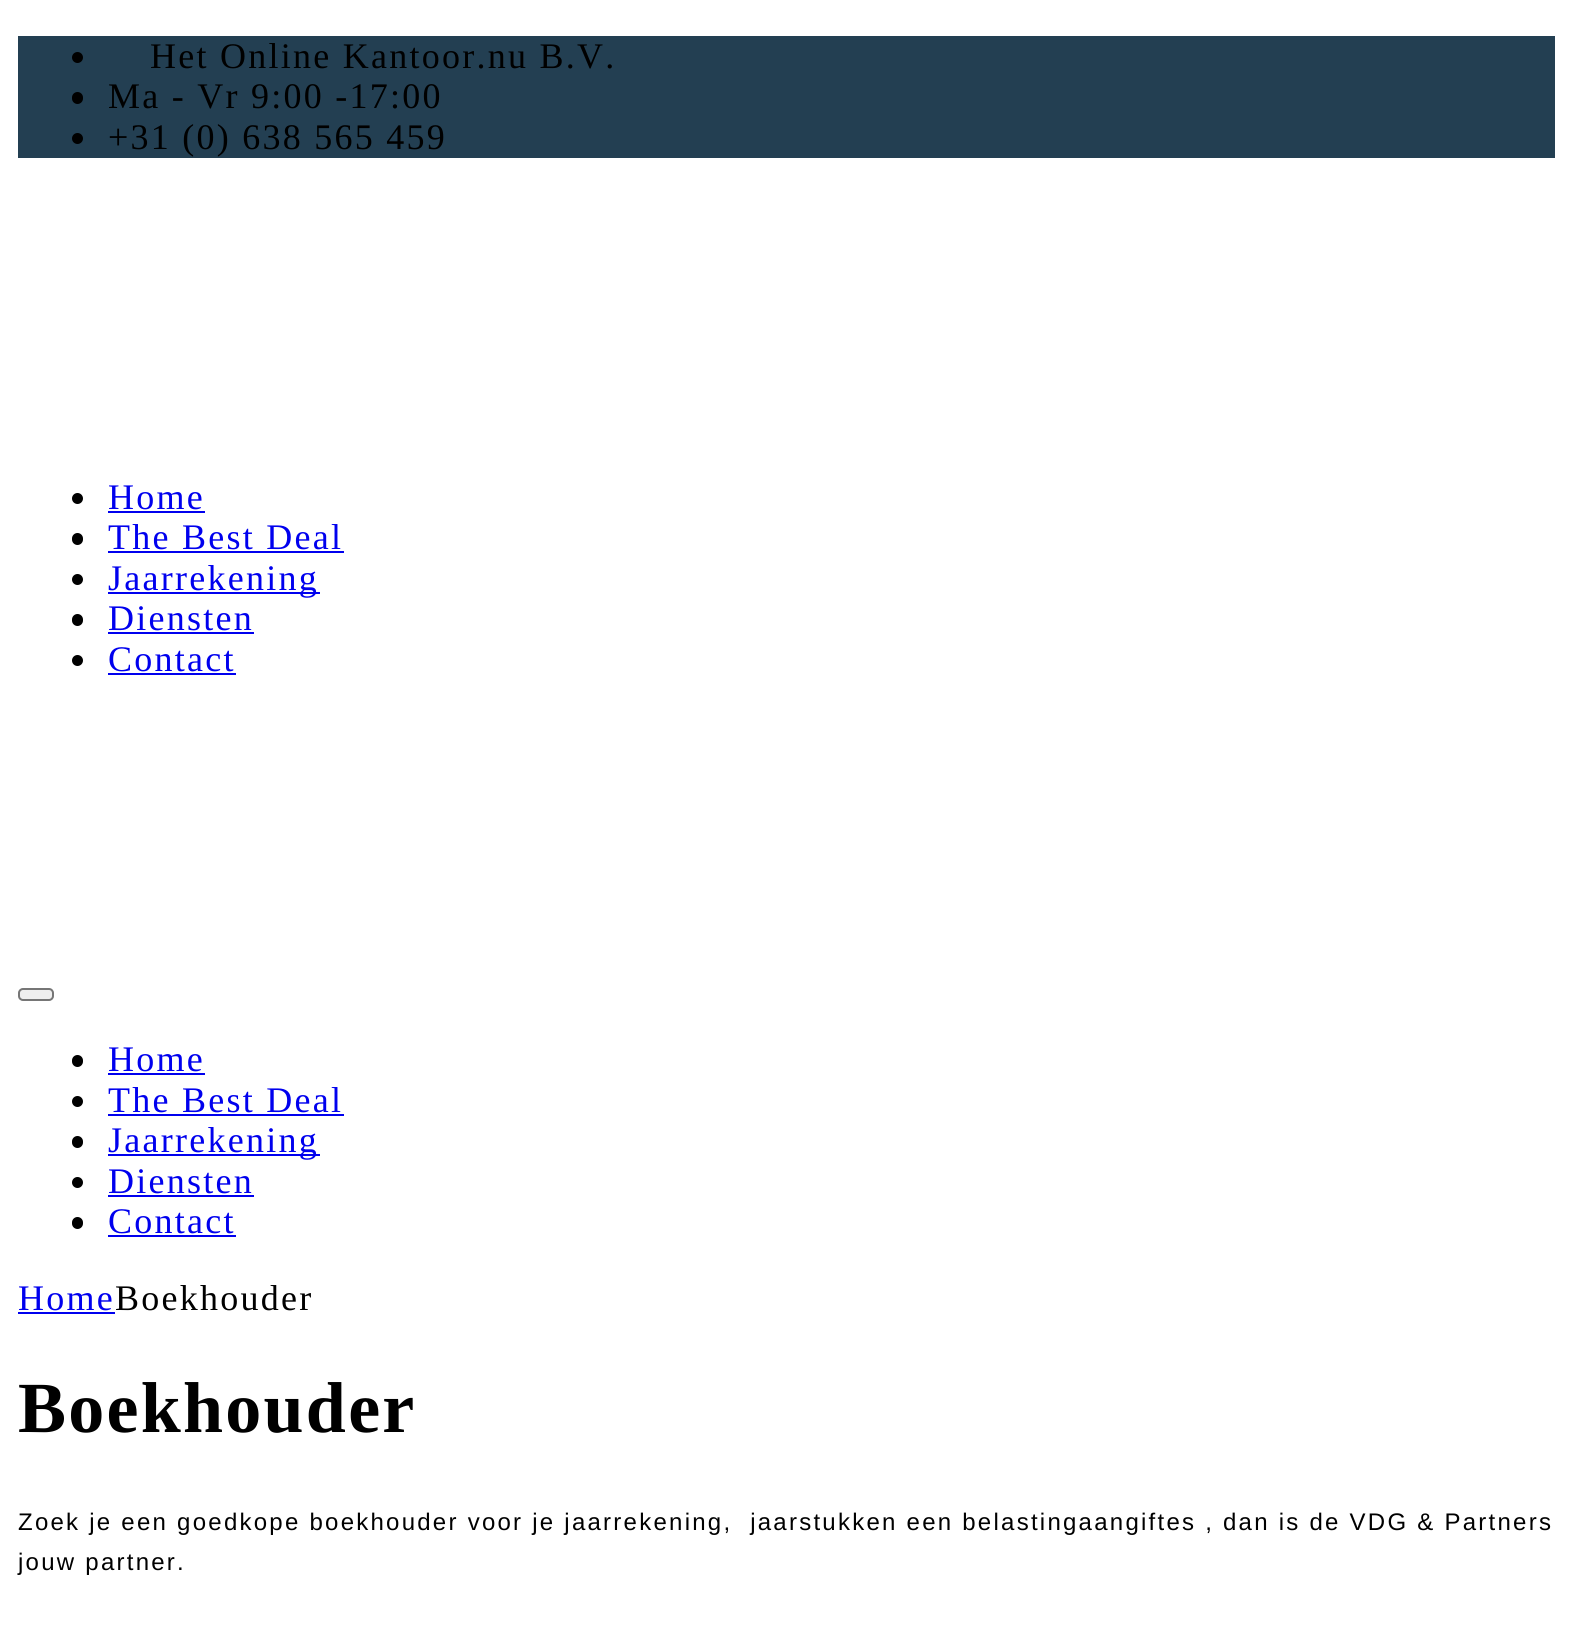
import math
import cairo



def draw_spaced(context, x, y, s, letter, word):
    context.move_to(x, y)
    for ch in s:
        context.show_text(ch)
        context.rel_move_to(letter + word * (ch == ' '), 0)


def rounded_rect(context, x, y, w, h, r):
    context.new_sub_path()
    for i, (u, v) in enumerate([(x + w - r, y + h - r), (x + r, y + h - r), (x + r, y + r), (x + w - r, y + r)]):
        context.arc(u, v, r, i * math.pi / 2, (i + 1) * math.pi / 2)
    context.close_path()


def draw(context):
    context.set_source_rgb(1, 1, 1)
    context.paint()
    context.set_source_rgb(35 / 255, 63 / 255, 82 / 255)
    context.rectangle(18, 36, 1537, 122)
    context.fill()
    context.set_source_rgb(0, 0, 0)
    context.arc(77.5, 57.5, 5.5, 0, 2 * math.pi)
    context.fill()
    rounded_rect(context, 72, 92, 11, 12, 5.5)
    context.fill()
    context.arc(77.5, 138.5, 5.5, 0, 2 * math.pi)
    context.fill()
    context.arc(77.5, 498.5, 5.5, 0, 2 * math.pi)
    context.fill()
    context.set_source_rgb(0, 0, 238 / 255)
    context.rectangle(108, 511, 97, 2)
    context.fill()
    context.set_source_rgb(0, 0, 0)
    rounded_rect(context, 72, 533, 11, 12, 5.5)
    context.fill()
    context.set_source_rgb(0, 0, 238 / 255)
    context.rectangle(108, 551, 236, 2)
    context.fill()
    context.set_source_rgb(0, 0, 0)
    context.arc(77.5, 579.5, 5.5, 0, 2 * math.pi)
    context.fill()
    context.set_source_rgb(0, 0, 238 / 255)
    context.rectangle(108, 592, 212, 2)
    context.fill()
    context.set_source_rgb(0, 0, 0)
    rounded_rect(context, 72, 614, 11, 12, 5.5)
    context.fill()
    context.set_source_rgb(0, 0, 238 / 255)
    context.rectangle(108, 632, 146, 2)
    context.fill()
    context.set_source_rgb(0, 0, 0)
    context.arc(77.5, 660.5, 5.5, 0, 2 * math.pi)
    context.fill()
    context.set_source_rgb(0, 0, 238 / 255)
    context.rectangle(108, 673, 128, 2)
    context.fill()
    context.set_source_rgb(239 / 255, 239 / 255, 239 / 255)
    rounded_rect(context, 19, 989, 34, 11, 4)
    context.fill_preserve()
    context.set_source_rgb(118 / 255, 118 / 255, 118 / 255)
    context.stroke()
    context.set_source_rgb(0, 0, 0)
    rounded_rect(context, 72, 1055, 11, 12, 5.5)
    context.fill()
    context.set_source_rgb(0, 0, 238 / 255)
    context.rectangle(108, 1073, 97, 2)
    context.fill()
    context.set_source_rgb(0, 0, 0)
    context.arc(77.5, 1101.5, 5.5, 0, 2 * math.pi)
    context.fill()
    context.set_source_rgb(0, 0, 238 / 255)
    context.rectangle(108, 1114, 236, 2)
    context.fill()
    context.set_source_rgb(0, 0, 0)
    rounded_rect(context, 72, 1136, 11, 12, 5.5)
    context.fill()
    context.set_source_rgb(0, 0, 238 / 255)
    context.rectangle(108, 1154, 212, 2)
    context.fill()
    context.set_source_rgb(0, 0, 0)
    context.arc(77.5, 1182.5, 5.5, 0, 2 * math.pi)
    context.fill()
    context.set_source_rgb(0, 0, 238 / 255)
    context.rectangle(108, 1195, 146, 2)
    context.fill()
    context.set_source_rgb(0, 0, 0)
    rounded_rect(context, 72, 1217, 11, 12, 5.5)
    context.fill()
    context.set_source_rgb(0, 0, 238 / 255)
    context.rectangle(108, 1235, 128, 2)
    context.fill()
    context.rectangle(18, 1312, 97, 2)
    context.fill()
    context.select_font_face("Liberation Serif")
    context.set_font_size(36)
    context.set_source_rgb(0, 0, 0)
    draw_spaced(context, 150, 68, "Het Online Kantoor.nu B.V.", 2.25, 0)
    draw_spaced(context, 108, 108, "Ma - Vr 9:00 -17:00", 2.25, 0)
    draw_spaced(context, 108, 149, "+31 (0) 638 565 459", 2.25, 0)
    context.set_source_rgb(0, 0, 238 / 255)
    draw_spaced(context, 108, 509, "Home", 2.25, 0)
    draw_spaced(context, 108, 549, "The Best Deal", 2.25, 0)
    draw_spaced(context, 108, 590, "Jaarrekening", 2.25, 0)
    draw_spaced(context, 108, 630, "Diensten", 2.25, 0)
    draw_spaced(context, 108, 671, "Contact", 2.25, 0)
    draw_spaced(context, 108, 1071, "Home", 2.25, 0)
    draw_spaced(context, 108, 1112, "The Best Deal", 2.25, 0)
    draw_spaced(context, 108, 1152, "Jaarrekening", 2.25, 0)
    draw_spaced(context, 108, 1193, "Diensten", 2.25, 0)
    draw_spaced(context, 108, 1233, "Contact", 2.25, 0)
    draw_spaced(context, 18, 1310, "Home", 2.25, 0)
    context.set_source_rgb(0, 0, 0)
    draw_spaced(context, 115, 1310, "Boekhouder", 2.25, 0)
    context.select_font_face("Liberation Serif", cairo.FontSlant.NORMAL, cairo.FontWeight.BOLD)
    context.set_font_size(72)
    draw_spaced(context, 18, 1432, "Boekhouder", 2.25, 0)
    context.select_font_face("Liberation Sans")
    context.set_font_size(24)
    draw_spaced(context, 18, 1530, "Zoek je een goedkope boekhouder voor je jaarrekening,  jaarstukken een belastingaangiftes , dan is de VDG & Partners", 2.25, 0)
    draw_spaced(context, 18, 1570, "jouw partner.", 2.25, 0)


surface = cairo.ImageSurface(cairo.Format.RGB24, 1571, 1629)
context = cairo.Context(surface)
options = cairo.FontOptions()
options.set_hint_metrics(cairo.HintMetrics.OFF)
options.set_hint_style(cairo.HintStyle.NONE)
context.set_font_options(options)
context.set_miter_limit(4)
draw(context)
surface.write_to_png("out.png")
